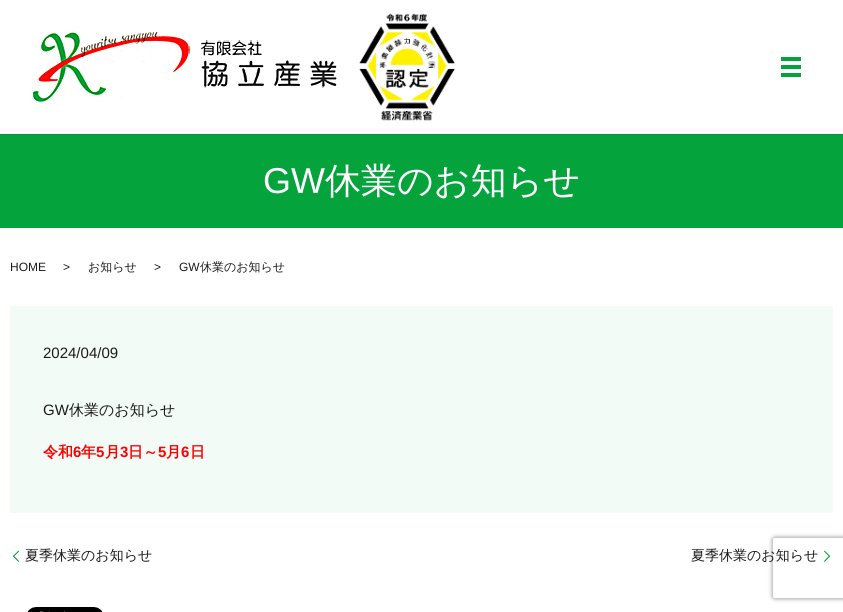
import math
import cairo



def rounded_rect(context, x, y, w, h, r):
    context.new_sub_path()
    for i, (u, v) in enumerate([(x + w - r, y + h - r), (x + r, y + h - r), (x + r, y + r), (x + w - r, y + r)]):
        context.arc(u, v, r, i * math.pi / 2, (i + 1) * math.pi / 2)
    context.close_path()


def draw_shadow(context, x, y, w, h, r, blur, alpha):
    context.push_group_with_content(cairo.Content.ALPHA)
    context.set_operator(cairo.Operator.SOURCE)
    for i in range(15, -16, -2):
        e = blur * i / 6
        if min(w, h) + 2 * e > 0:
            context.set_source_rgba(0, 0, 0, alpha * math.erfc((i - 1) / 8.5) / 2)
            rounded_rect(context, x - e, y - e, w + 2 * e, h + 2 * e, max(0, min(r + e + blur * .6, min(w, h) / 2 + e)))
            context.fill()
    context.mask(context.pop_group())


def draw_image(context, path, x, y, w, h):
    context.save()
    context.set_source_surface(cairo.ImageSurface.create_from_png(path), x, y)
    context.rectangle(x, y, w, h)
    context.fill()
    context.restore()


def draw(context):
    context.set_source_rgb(1, 1, 1)
    context.paint()
    context.set_source_rgb(4 / 255, 163 / 255, 60 / 255)
    context.rectangle(0, 134, 843, 94)
    context.fill()
    context.save()
    context.rectangle(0, 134, 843, 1)
    context.clip()
    context.set_source_rgb(0, 0, 0)
    draw_shadow(context, 0, 1, 843, 134, 0, 0.5, 0.1)
    context.restore()
    draw_image(context, "images/1.png", 33, 32, 304, 70)
    draw_image(context, "images/2.png", 359, 13, 96, 108)
    context.rectangle(781, 57, 20, 4)
    context.fill()
    context.rectangle(781, 65, 20, 4)
    context.fill()
    context.rectangle(781, 73, 20, 4)
    context.fill()
    context.set_source_rgb(243 / 255, 251 / 255, 246 / 255)
    context.rectangle(10, 306, 823, 207)
    context.fill()
    context.set_source_rgb(4 / 255, 163 / 255, 60 / 255)
    context.new_path()
    context.move_to(13, 556)
    context.line_to(18.5, 550.5)
    context.line_to(19, 551.5)
    context.line_to(13.5, 557)
    context.close_path()
    context.fill()
    context.new_path()
    context.move_to(18.5, 562)
    context.line_to(13, 556.5)
    context.line_to(13.5, 555.5)
    context.line_to(19, 561)
    context.close_path()
    context.fill()
    context.new_path()
    context.move_to(824.5, 550.5)
    context.line_to(830, 556)
    context.line_to(829.5, 557)
    context.line_to(824, 551.5)
    context.close_path()
    context.fill()
    context.new_path()
    context.move_to(830, 556.5)
    context.line_to(824.5, 562)
    context.line_to(824, 561)
    context.line_to(829.5, 555.5)
    context.close_path()
    context.fill()
    draw_image(context, "images/3.png", 27, 607, 76, 5)
    context.save()
    context.set_fill_rule(cairo.FillRule.EVEN_ODD)
    context.new_path()
    context.move_to(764, 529)
    context.line_to(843, 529)
    context.line_to(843, 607)
    context.line_to(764, 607)
    context.close_path()
    context.move_to(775, 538)
    context.line_to(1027, 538)
    context.curve_to(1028, 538, 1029, 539, 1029, 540)
    context.line_to(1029, 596)
    context.curve_to(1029, 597, 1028, 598, 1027, 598)
    context.line_to(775, 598)
    context.curve_to(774, 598, 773, 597, 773, 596)
    context.line_to(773, 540)
    context.curve_to(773, 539, 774, 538, 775, 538)
    context.close_path()
    context.clip()
    context.set_source_rgb(128 / 255, 128 / 255, 128 / 255)
    draw_shadow(context, 773, 538, 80, 60, 2, 2.5, 1)
    context.restore()
    context.select_font_face("Liberation Sans")
    context.set_font_size(36)
    context.set_source_rgb(1, 1, 1)
    context.move_to(263, 193)
    context.show_text("GW")
    context.select_font_face("WenQuanYi Zen Hei Medium")
    context.move_to(325, 193)
    context.show_text("休業のお知らせ")
    context.select_font_face("Liberation Sans")
    context.set_font_size(12)
    context.set_source_rgb(27 / 255, 27 / 255, 27 / 255)
    context.move_to(10, 271)
    context.show_text("HOME")
    context.move_to(63, 271)
    context.show_text(">")
    context.select_font_face("WenQuanYi Zen Hei Medium")
    context.move_to(88, 271)
    context.show_text("お知らせ")
    context.select_font_face("Liberation Sans")
    context.move_to(154, 271)
    context.show_text(">")
    context.move_to(179, 271)
    context.show_text("GW")
    context.select_font_face("WenQuanYi Zen Hei Medium")
    context.move_to(200, 271)
    context.show_text("休業のお知らせ")
    context.select_font_face("Liberation Sans")
    context.set_font_size(15)
    context.move_to(43, 358)
    context.show_text("2024/04/09")
    context.move_to(43, 415)
    context.show_text("GW")
    context.select_font_face("WenQuanYi Zen Hei Medium")
    context.move_to(69, 415)
    context.show_text("休業のお知らせ")
    context.select_font_face("WenQuanYi Zen Hei", cairo.FontSlant.NORMAL, cairo.FontWeight.BOLD)
    context.set_source_rgb(1, 0, 0)
    context.move_to(43, 457)
    context.show_text("令和")
    context.select_font_face("Liberation Sans", cairo.FontSlant.NORMAL, cairo.FontWeight.BOLD)
    context.move_to(73, 457)
    context.show_text("6")
    context.select_font_face("WenQuanYi Zen Hei", cairo.FontSlant.NORMAL, cairo.FontWeight.BOLD)
    context.move_to(81, 457)
    context.show_text("年")
    context.select_font_face("Liberation Sans", cairo.FontSlant.NORMAL, cairo.FontWeight.BOLD)
    context.move_to(96, 457)
    context.show_text("5")
    context.select_font_face("WenQuanYi Zen Hei", cairo.FontSlant.NORMAL, cairo.FontWeight.BOLD)
    context.move_to(105, 457)
    context.show_text("月")
    context.select_font_face("Liberation Sans", cairo.FontSlant.NORMAL, cairo.FontWeight.BOLD)
    context.move_to(120, 457)
    context.show_text("3")
    context.select_font_face("WenQuanYi Zen Hei", cairo.FontSlant.NORMAL, cairo.FontWeight.BOLD)
    context.move_to(128, 457)
    context.show_text("日～")
    context.select_font_face("Liberation Sans", cairo.FontSlant.NORMAL, cairo.FontWeight.BOLD)
    context.move_to(158, 457)
    context.show_text("5")
    context.select_font_face("WenQuanYi Zen Hei", cairo.FontSlant.NORMAL, cairo.FontWeight.BOLD)
    context.move_to(166, 457)
    context.show_text("月")
    context.select_font_face("Liberation Sans", cairo.FontSlant.NORMAL, cairo.FontWeight.BOLD)
    context.move_to(181, 457)
    context.show_text("6")
    context.select_font_face("WenQuanYi Zen Hei", cairo.FontSlant.NORMAL, cairo.FontWeight.BOLD)
    context.move_to(190, 457)
    context.show_text("日")
    context.select_font_face("WenQuanYi Zen Hei Medium")
    context.set_font_size(14)
    context.set_source_rgb(27 / 255, 27 / 255, 27 / 255)
    context.move_to(25, 560)
    context.show_text("夏季休業のお知らせ")
    context.move_to(691, 560)
    context.show_text("夏季休業のお知らせ")


surface = cairo.ImageSurface(cairo.Format.RGB24, 843, 612)
context = cairo.Context(surface)
options = cairo.FontOptions()
options.set_hint_metrics(cairo.HintMetrics.OFF)
options.set_hint_style(cairo.HintStyle.NONE)
context.set_font_options(options)
context.set_miter_limit(4)
draw(context)
surface.write_to_png("out.png")
